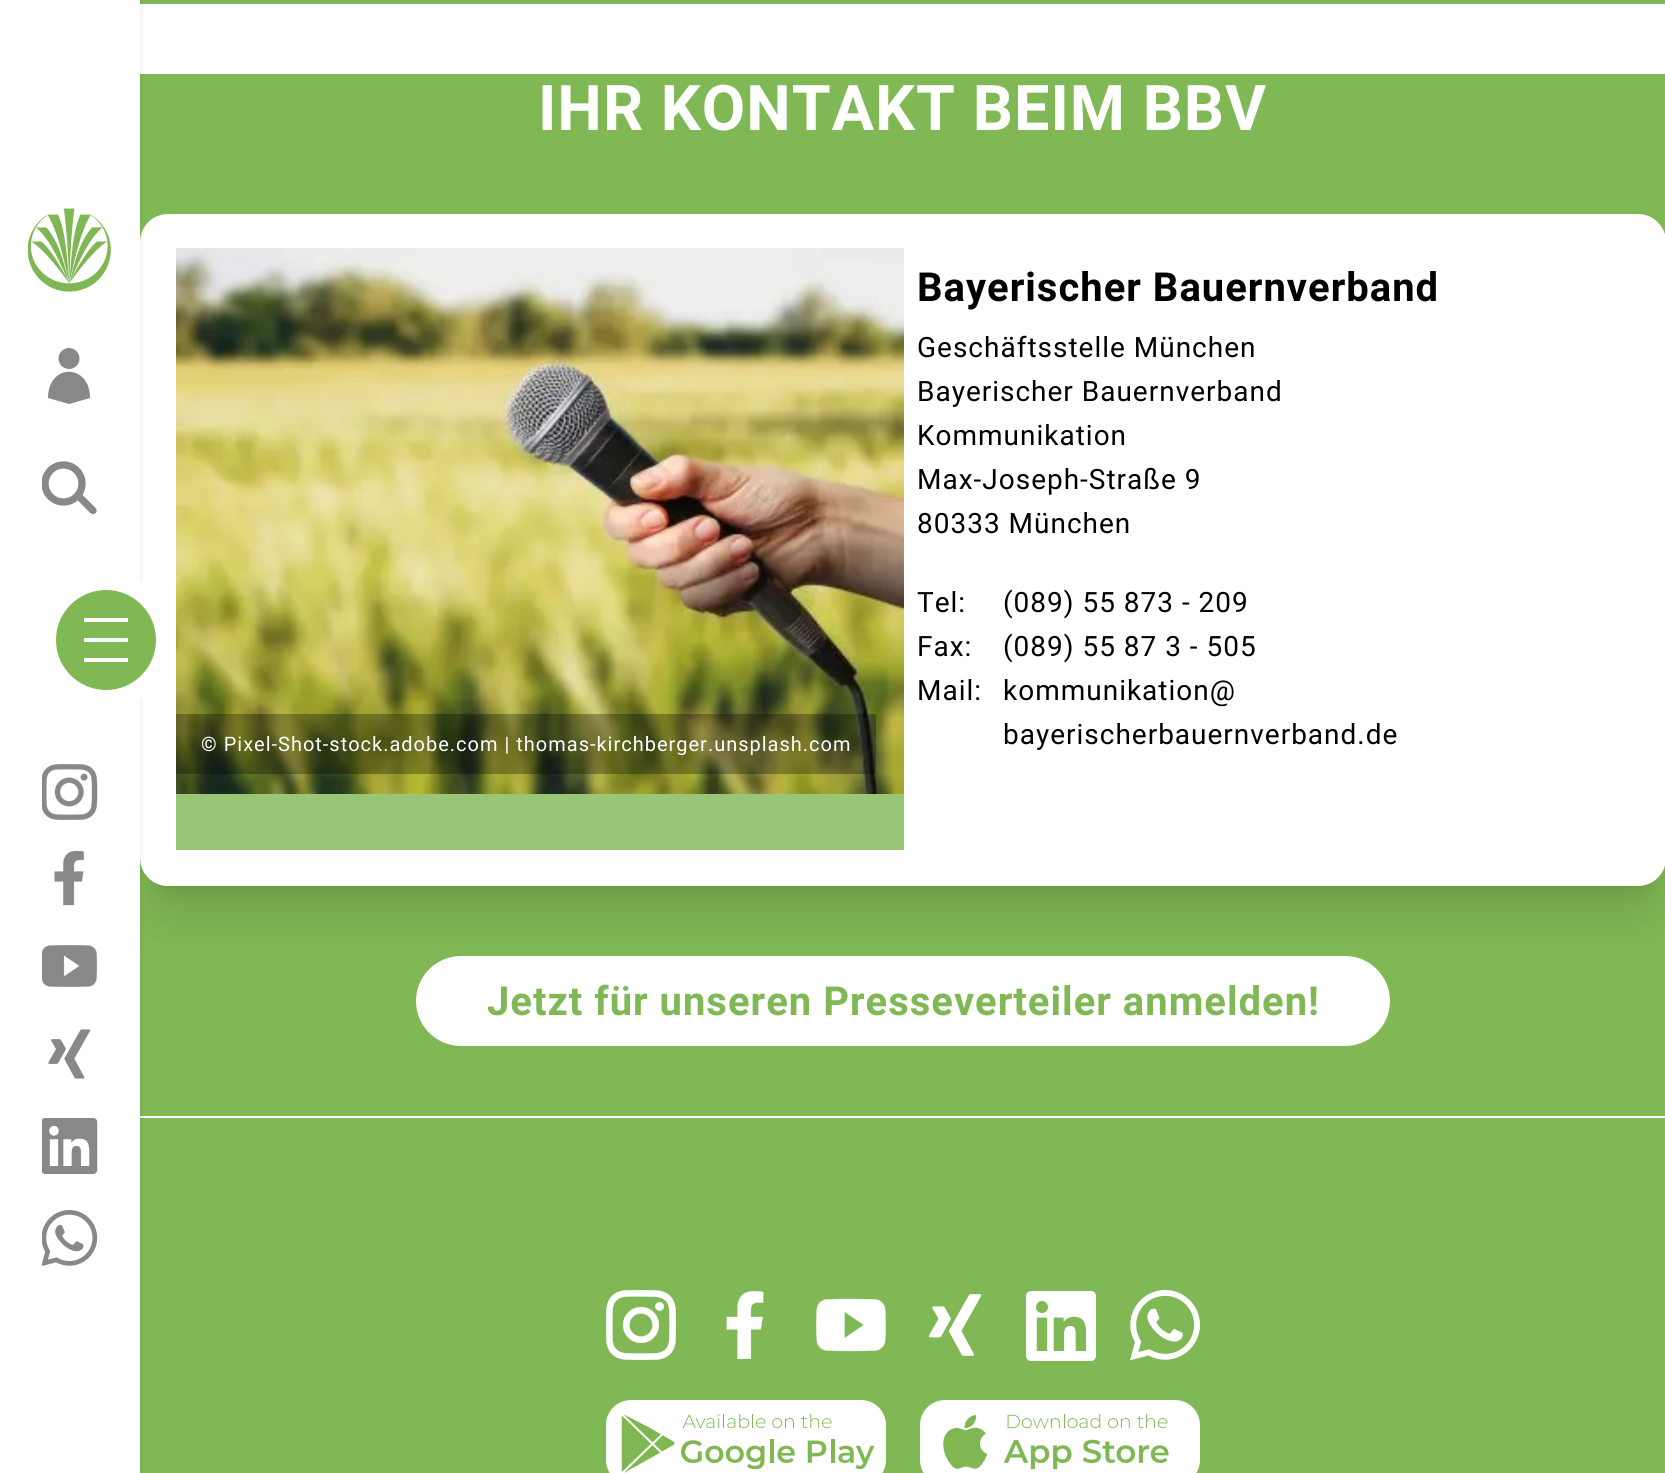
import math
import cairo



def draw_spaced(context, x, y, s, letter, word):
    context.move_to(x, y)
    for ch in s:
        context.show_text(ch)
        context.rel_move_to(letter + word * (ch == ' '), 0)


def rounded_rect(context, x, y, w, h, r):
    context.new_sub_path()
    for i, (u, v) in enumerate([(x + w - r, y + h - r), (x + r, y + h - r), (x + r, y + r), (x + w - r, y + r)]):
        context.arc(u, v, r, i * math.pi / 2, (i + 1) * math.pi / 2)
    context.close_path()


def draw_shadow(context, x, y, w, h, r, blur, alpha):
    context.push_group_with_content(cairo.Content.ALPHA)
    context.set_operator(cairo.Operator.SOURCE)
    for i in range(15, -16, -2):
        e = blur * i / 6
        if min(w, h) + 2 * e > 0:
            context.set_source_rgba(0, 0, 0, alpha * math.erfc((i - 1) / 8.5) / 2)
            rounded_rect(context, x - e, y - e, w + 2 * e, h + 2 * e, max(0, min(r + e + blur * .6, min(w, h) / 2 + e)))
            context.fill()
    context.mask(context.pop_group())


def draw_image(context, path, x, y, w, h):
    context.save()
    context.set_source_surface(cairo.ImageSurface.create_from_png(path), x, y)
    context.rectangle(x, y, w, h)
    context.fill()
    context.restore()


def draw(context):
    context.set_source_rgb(1, 1, 1)
    context.paint()
    context.set_source_rgb(127 / 255, 184 / 255, 84 / 255)
    context.rectangle(140, 0, 1525, 4)
    context.fill()
    context.rectangle(140, 74, 1525, 1042)
    context.fill()
    context.set_source_rgb(0, 0, 0)
    draw_shadow(context, 152, 242, 1502, 648, 16, 10, 0.1)
    draw_shadow(context, 150, 264, 1506, 652, 18, 25, 0.1)
    context.set_source_rgb(1, 1, 1)
    rounded_rect(context, 140, 214, 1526, 672, 28)
    context.fill()
    context.set_source_rgb(127 / 255, 184 / 255, 84 / 255)
    context.rectangle(140, 1118, 1525, 355)
    context.fill()
    context.set_source_rgb(0, 0, 0)
    draw_shadow(context, -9, 2, 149, 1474, 0, 3, 0.1)
    context.set_source_rgb(1, 1, 1)
    context.rectangle(0, 0, 140, 1473)
    context.fill()
    draw_image(context, "images/1.png", 28, 208, 83, 84)
    context.set_source_rgb(136 / 255, 136 / 255, 136 / 255)
    context.new_path()
    context.move_to(48, 398)
    context.curve_to(48, 363, 90, 363, 90, 398)
    context.line_to(69, 404)
    context.close_path()
    context.fill()
    context.arc(69, 358.5, 10.5, 0, 2 * math.pi)
    context.fill()
    context.save()
    context.rectangle(42, 460, 56, 56)
    context.clip()
    context.arc(63.5, 483.5, 18.5, 0, 2 * math.pi)
    context.set_line_width(7.3)
    context.stroke()
    context.restore()
    context.new_path()
    context.move_to(78, 495.5)
    context.line_to(93, 510.5)
    context.set_line_width(7.3)
    context.set_line_cap(cairo.LineCap.ROUND)
    context.stroke()
    context.set_source_rgb(1, 1, 1)
    context.arc(106, 640, 68, 0, 2 * math.pi)
    context.fill()
    context.set_source_rgb(127 / 255, 184 / 255, 84 / 255)
    context.arc(106, 640, 50, 0, 2 * math.pi)
    context.fill()
    context.set_source_rgb(1, 1, 1)
    context.rectangle(84, 618, 44, 4)
    context.fill()
    context.rectangle(84, 638, 44, 4)
    context.fill()
    context.rectangle(84, 658, 44, 4)
    context.fill()
    draw_image(context, "images/2.png", 42, 764, 56, 56)
    draw_image(context, "images/3.png", 54, 850, 30, 56)
    draw_image(context, "images/4.png", 42, 945, 55, 42)
    draw_image(context, "images/5.png", 48, 1029, 43, 50)
    draw_image(context, "images/6.png", 42, 1118, 56, 56)
    draw_image(context, "images/7.png", 42, 1210, 56, 56)
    draw_image(context, "images/8.png", 176, 248, 728, 546)
    context.set_source_rgba(0, 0, 0, 0.3)
    context.rectangle(176, 714, 700, 60)
    context.fill()
    context.set_source_rgb(153 / 255, 198 / 255, 118 / 255)
    context.rectangle(176, 794, 728, 56)
    context.fill()
    context.set_source_rgb(1, 1, 1)
    rounded_rect(context, 416, 956, 974, 90, 45)
    context.fill()
    draw_image(context, "images/9.png", 606, 1290, 70, 70)
    draw_image(context, "images/10.png", 726, 1291, 38, 68)
    draw_image(context, "images/11.png", 816, 1298, 70, 54)
    draw_image(context, "images/12.png", 928, 1294, 54, 62)
    draw_image(context, "images/13.png", 1026, 1291, 70, 70)
    draw_image(context, "images/14.png", 1130, 1290, 70, 71)
    draw_image(context, "images/15.png", 606, 1400, 280, 73)
    draw_image(context, "images/16.png", 920, 1400, 280, 73)
    context.select_font_face("Roboto", cairo.FontSlant.NORMAL, cairo.FontWeight.BOLD)
    context.set_font_size(63)
    draw_spaced(context, 538, 130, "IHR KONTAKT BEIM BBV", 1, 0)
    context.select_font_face("Roboto")
    context.set_font_size(20)
    draw_spaced(context, 201, 751, "© Pixel-Shot-stock.adobe.com | thomas-kirchberger.unsplash.com", 1, 0)
    context.select_font_face("Roboto", cairo.FontSlant.NORMAL, cairo.FontWeight.BOLD)
    context.set_font_size(40)
    context.set_source_rgb(0, 0, 0)
    draw_spaced(context, 917, 301, "Bayerischer Bauernverband", 1, 0)
    context.select_font_face("Roboto")
    context.set_font_size(28)
    draw_spaced(context, 917, 357, "Geschäftsstelle München", 1, 0)
    draw_spaced(context, 917, 401, "Bayerischer Bauernverband", 1, 0)
    draw_spaced(context, 917, 445, "Kommunikation", 1, 0)
    draw_spaced(context, 917, 489, "Max-Joseph-Straße 9", 1, 0)
    draw_spaced(context, 917, 533, "80333 München", 1, 0)
    draw_spaced(context, 917, 612, "Tel:", 1, 0)
    draw_spaced(context, 1003, 612, "(089) 55 873 - 209", 1, 0)
    draw_spaced(context, 917, 656, "Fax:", 1, 0)
    draw_spaced(context, 1003, 656, "(089) 55 87 3 - 505", 1, 0)
    draw_spaced(context, 917, 700, "Mail:", 1, 0)
    draw_spaced(context, 1003, 700, "kommunikation@", 1, 0)
    draw_spaced(context, 1003, 744, "bayerischerbauernverband.de", 1, 0)
    context.select_font_face("Roboto", cairo.FontSlant.NORMAL, cairo.FontWeight.BOLD)
    context.set_font_size(40)
    context.set_source_rgb(127 / 255, 184 / 255, 84 / 255)
    draw_spaced(context, 487, 1015, "Jetzt für unseren Presseverteiler anmelden!", 1, 0)


surface = cairo.ImageSurface(cairo.Format.RGB24, 1665, 1473)
context = cairo.Context(surface)
options = cairo.FontOptions()
options.set_hint_metrics(cairo.HintMetrics.OFF)
options.set_hint_style(cairo.HintStyle.NONE)
context.set_font_options(options)
context.set_miter_limit(4)
draw(context)
surface.write_to_png("out.png")
